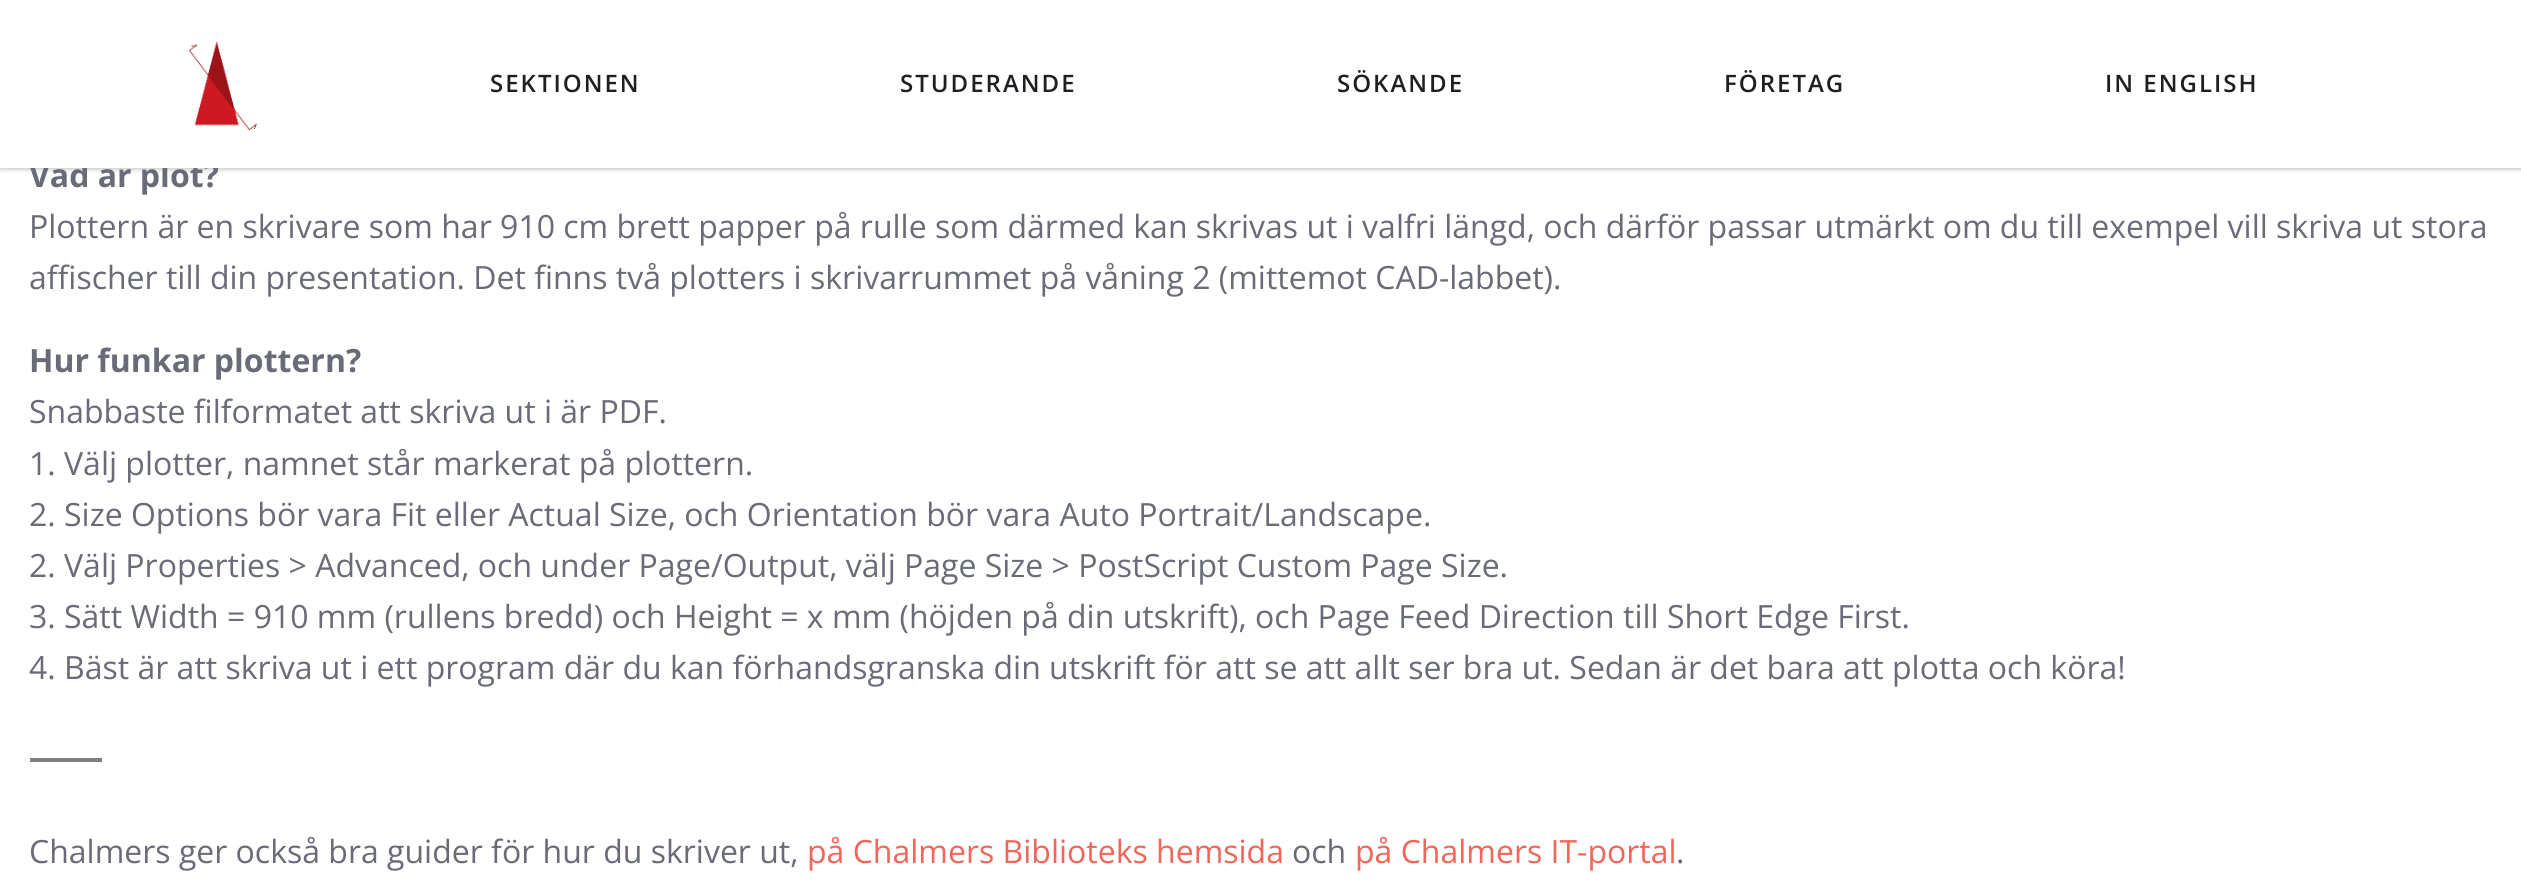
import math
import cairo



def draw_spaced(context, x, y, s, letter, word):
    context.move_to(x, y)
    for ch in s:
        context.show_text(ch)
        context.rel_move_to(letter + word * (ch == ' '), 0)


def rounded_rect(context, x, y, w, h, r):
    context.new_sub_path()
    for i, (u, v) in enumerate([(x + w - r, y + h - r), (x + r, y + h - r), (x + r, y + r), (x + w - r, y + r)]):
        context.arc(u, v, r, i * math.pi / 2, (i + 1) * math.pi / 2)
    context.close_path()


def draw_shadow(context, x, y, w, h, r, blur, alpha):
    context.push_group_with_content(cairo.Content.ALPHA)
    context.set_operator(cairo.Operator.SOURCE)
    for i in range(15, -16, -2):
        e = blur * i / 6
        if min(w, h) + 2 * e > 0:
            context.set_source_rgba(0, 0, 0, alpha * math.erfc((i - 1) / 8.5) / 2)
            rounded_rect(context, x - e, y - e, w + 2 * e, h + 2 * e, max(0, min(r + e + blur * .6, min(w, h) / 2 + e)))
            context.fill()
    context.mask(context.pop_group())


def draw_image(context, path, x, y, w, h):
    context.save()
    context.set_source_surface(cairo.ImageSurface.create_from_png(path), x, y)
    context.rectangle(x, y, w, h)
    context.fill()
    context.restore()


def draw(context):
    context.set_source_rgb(1, 1, 1)
    context.paint()
    context.set_source_rgb(0, 0, 0)
    draw_shadow(context, 0, 2, 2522, 168, 0, 2, 0.2)
    context.set_source_rgb(128 / 255, 128 / 255, 128 / 255)
    context.rectangle(30, 758, 72, 4)
    context.fill()
    context.select_font_face("Open Sans", cairo.FontSlant.NORMAL, cairo.FontWeight.BOLD)
    context.set_font_size(32)
    context.set_source_rgb(105 / 255, 108 / 255, 119 / 255)
    context.move_to(29, 187)
    context.show_text("Vad är plot?")
    context.set_source_rgb(1, 1, 1)
    context.rectangle(0, 0, 2521, 168)
    context.fill()
    context.select_font_face("Open Sans SemiBold")
    context.set_font_size(24)
    context.set_source_rgb(30 / 255, 31 / 255, 34 / 255)
    draw_spaced(context, 2105, 92, "IN ENGLISH", 2, 0)
    draw_spaced(context, 1724, 92, "FÖRETAG", 2, 0)
    draw_spaced(context, 1337, 92, "SÖKANDE", 2, 0)
    draw_spaced(context, 900, 92, "STUDERANDE", 2, 0)
    draw_spaced(context, 490, 92, "SEKTIONEN", 2, 0)
    draw_image(context, "images/1.png", 189, 41, 68, 89)
    context.select_font_face("Open Sans")
    context.set_font_size(32)
    context.set_source_rgb(105 / 255, 108 / 255, 119 / 255)
    context.move_to(29, 238)
    context.show_text("Plottern är en skrivare som har 910 cm brett papper på rulle som därmed kan skrivas ut i valfri längd, och därför passar utmärkt om du till exempel vill skriva ut stora")
    context.move_to(29, 289)
    context.show_text("affischer till din presentation. Det finns två plotters i skrivarrummet på våning 2 (mittemot CAD-labbet).")
    context.select_font_face("Open Sans", cairo.FontSlant.NORMAL, cairo.FontWeight.BOLD)
    context.move_to(29, 372)
    context.show_text("Hur funkar plottern?")
    context.select_font_face("Open Sans")
    context.move_to(29, 423)
    context.show_text("Snabbaste filformatet att skriva ut i är PDF.")
    context.move_to(29, 475)
    context.show_text("1. Välj plotter, namnet står markerat på plottern.")
    context.move_to(29, 526)
    context.show_text("2. Size Options bör vara Fit eller Actual Size, och Orientation bör vara Auto Portrait/Landscape.")
    context.move_to(29, 577)
    context.show_text("2. Välj Properties > Advanced, och under Page/Output, välj Page Size > PostScript Custom Page Size.")
    context.move_to(29, 628)
    context.show_text("3. Sätt Width = 910 mm (rullens bredd) och Height = x mm (höjden på din utskrift), och Page Feed Direction till Short Edge First.")
    context.move_to(29, 679)
    context.show_text("4. Bäst är att skriva ut i ett program där du kan förhandsgranska din utskrift för att se att allt ser bra ut. Sedan är det bara att plotta och köra!")
    context.move_to(29, 863)
    context.show_text("Chalmers ger också bra guider för hur du skriver ut,")
    context.set_source_rgb(242 / 255, 101 / 255, 89 / 255)
    context.move_to(807, 863)
    context.show_text("på Chalmers Biblioteks hemsida")
    context.set_source_rgb(105 / 255, 108 / 255, 119 / 255)
    context.move_to(1292, 863)
    context.show_text("och")
    context.set_source_rgb(242 / 255, 101 / 255, 89 / 255)
    context.move_to(1355, 863)
    context.show_text("på Chalmers IT-portal")
    context.set_source_rgb(105 / 255, 108 / 255, 119 / 255)
    context.move_to(1676, 863)
    context.show_text(".")


surface = cairo.ImageSurface(cairo.Format.RGB24, 2521, 892)
context = cairo.Context(surface)
options = cairo.FontOptions()
options.set_hint_metrics(cairo.HintMetrics.OFF)
options.set_hint_style(cairo.HintStyle.NONE)
context.set_font_options(options)
context.set_miter_limit(4)
draw(context)
surface.write_to_png("out.png")
